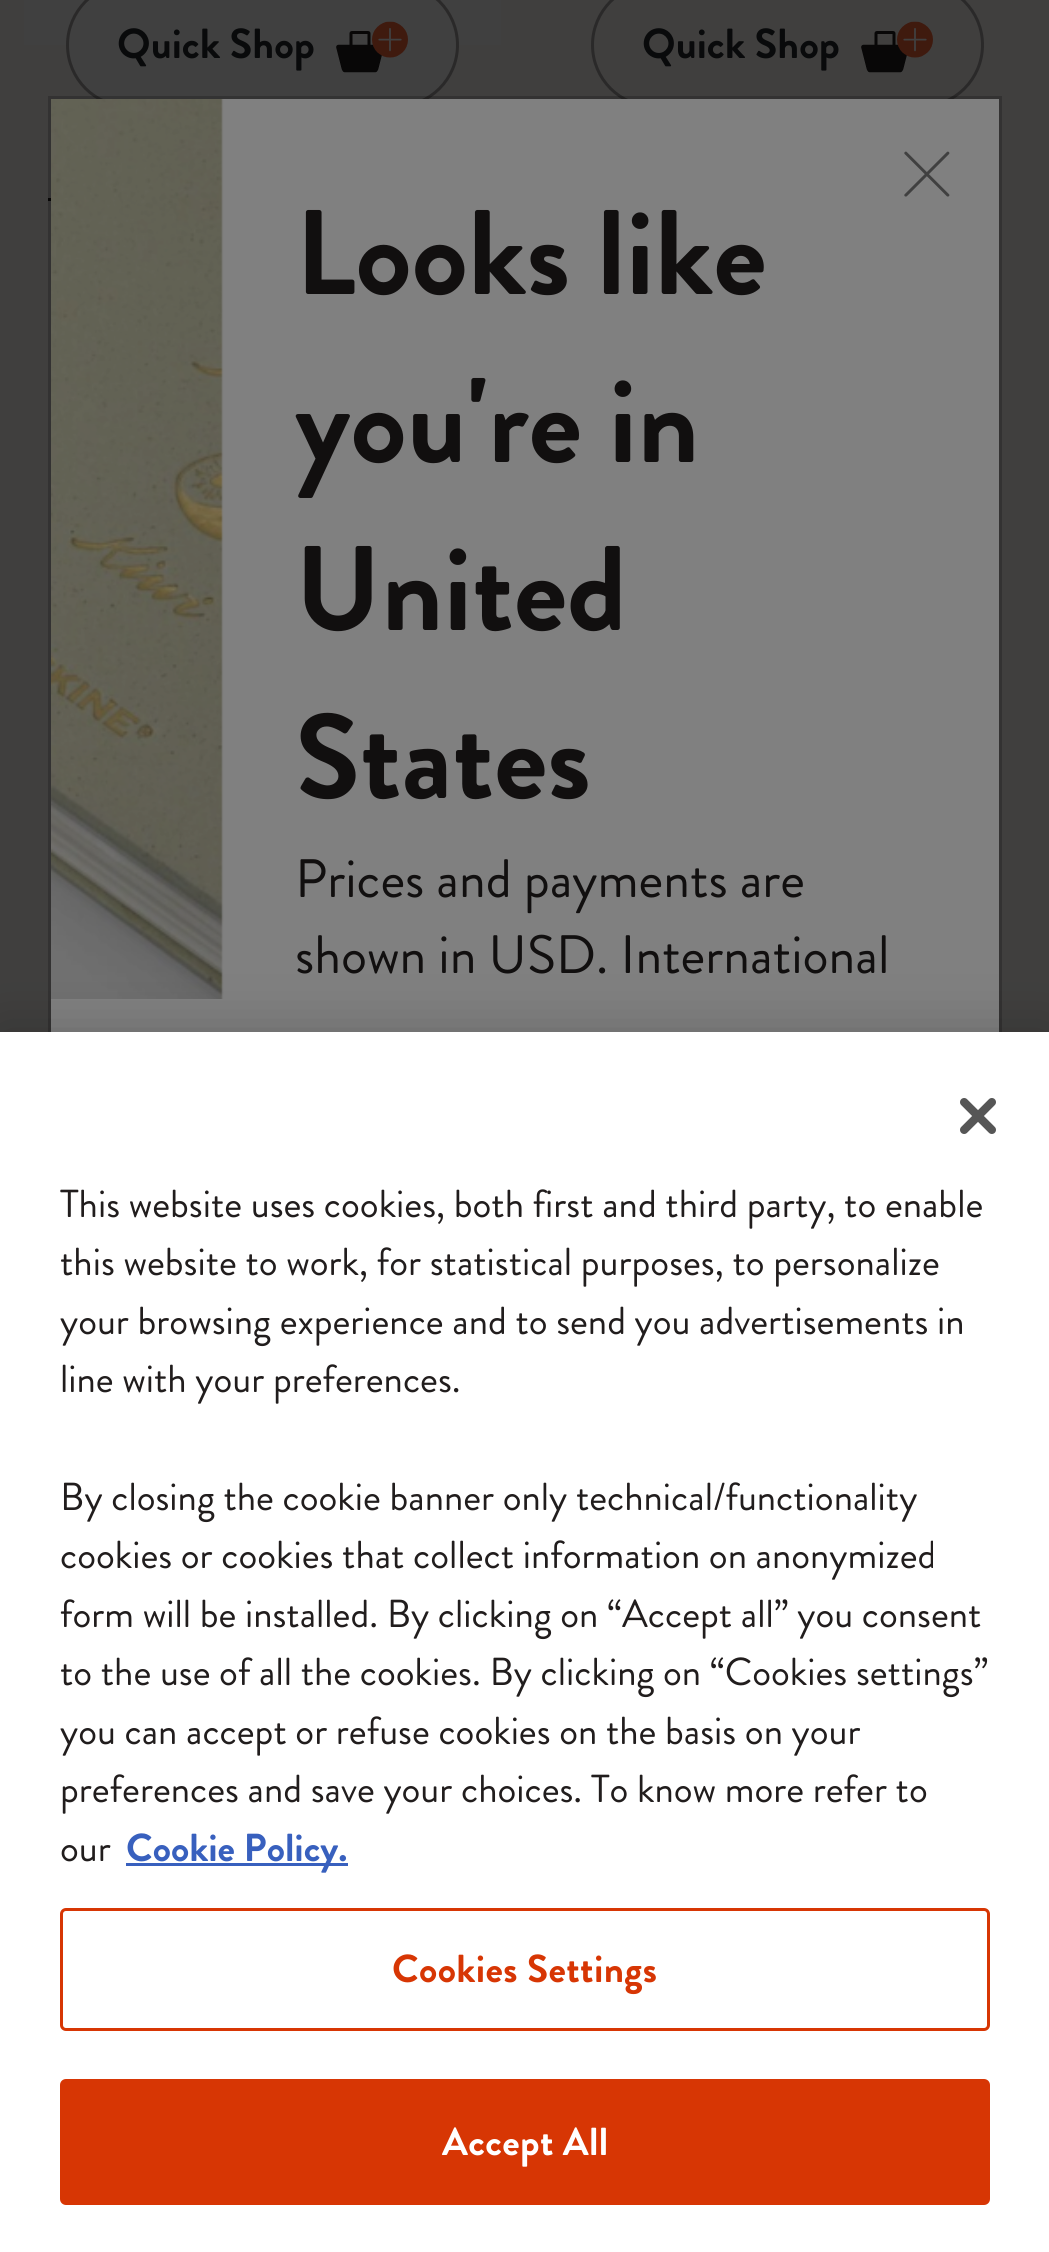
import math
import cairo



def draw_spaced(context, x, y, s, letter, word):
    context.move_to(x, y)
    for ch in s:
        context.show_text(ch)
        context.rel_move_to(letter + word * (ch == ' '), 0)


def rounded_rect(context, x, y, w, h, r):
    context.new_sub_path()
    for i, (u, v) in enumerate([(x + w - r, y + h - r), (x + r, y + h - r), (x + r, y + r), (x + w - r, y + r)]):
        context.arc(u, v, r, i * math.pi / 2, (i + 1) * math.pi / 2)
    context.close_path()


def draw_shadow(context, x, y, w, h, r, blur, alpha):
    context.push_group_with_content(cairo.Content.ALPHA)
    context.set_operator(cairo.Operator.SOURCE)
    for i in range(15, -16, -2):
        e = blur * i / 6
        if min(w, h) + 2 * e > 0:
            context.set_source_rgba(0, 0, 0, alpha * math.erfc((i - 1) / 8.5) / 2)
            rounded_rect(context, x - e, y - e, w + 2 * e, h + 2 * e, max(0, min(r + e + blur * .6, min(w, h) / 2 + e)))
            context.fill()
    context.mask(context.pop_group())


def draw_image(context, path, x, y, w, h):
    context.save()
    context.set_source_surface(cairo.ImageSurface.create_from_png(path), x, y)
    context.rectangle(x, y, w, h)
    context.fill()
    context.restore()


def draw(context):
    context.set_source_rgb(64 / 255, 63 / 255, 62 / 255)
    context.paint()
    draw_image(context, "images/1.png", 24, 0, 477, 45)
    context.set_source_rgb(64 / 255, 64 / 255, 64 / 255)
    rounded_rect(context, 67.5, -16.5, 390, 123, 61.5)
    context.fill_preserve()
    context.set_source_rgb(42 / 255, 41 / 255, 41 / 255)
    context.set_line_width(3)
    context.stroke()
    draw_image(context, "images/2.png", 336, 21, 72, 52)
    context.set_source_rgb(9 / 255, 8 / 255, 8 / 255)
    context.rectangle(48, 198, 3, 3)
    context.fill()
    rounded_rect(context, 592.5, -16.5, 390, 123, 61.5)
    context.set_source_rgb(42 / 255, 41 / 255, 41 / 255)
    context.stroke()
    draw_image(context, "images/2.png", 861, 21, 72, 52)
    context.set_source_rgb(128 / 255, 128 / 255, 128 / 255)
    context.rectangle(51, 99, 948, 933)
    context.fill()
    context.rectangle(49.5, 97.5, 951, 1776)
    context.set_source_rgba(0, 0, 0, 0.2)
    context.stroke()
    draw_image(context, "images/3.png", 51, 99, 173, 900)
    draw_image(context, "images/4.png", 904, 151, 46, 46)
    context.set_source_rgb(0, 0, 0)
    draw_shadow(context, 0, 1032, 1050, 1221, 0, 27, 0.2)
    context.set_source_rgb(1, 1, 1)
    context.rectangle(0, 1032, 1049, 1220)
    context.fill()
    draw_image(context, "images/5.png", 960, 1098, 36, 36)
    context.set_source_rgb(56 / 255, 96 / 255, 190 / 255)
    context.rectangle(126, 1863, 222, 3)
    context.fill()
    rounded_rect(context, 61.5, 1909.5, 927, 120, 4.5)
    context.set_source_rgb(215 / 255, 54 / 255, 4 / 255)
    context.stroke()
    rounded_rect(context, 61.5, 2080.5, 927, 123, 4.5)
    context.fill_preserve()
    context.stroke()
    context.select_font_face("Brandon Grotesque", cairo.FontSlant.NORMAL, cairo.FontWeight.BOLD)
    context.set_font_size(42)
    context.set_source_rgb(9 / 255, 10 / 255, 11 / 255)
    context.move_to(117, 58)
    context.show_text("Quick Shop")
    context.move_to(642, 58)
    context.show_text("Quick Shop")
    context.set_font_size(120)
    context.set_source_rgb(17 / 255, 15 / 255, 15 / 255)
    context.move_to(295, 294)
    context.show_text("Looks like")
    context.move_to(295, 462)
    context.show_text("you're in")
    context.move_to(295, 630)
    context.show_text("United")
    context.move_to(295, 798)
    context.show_text("States")
    context.select_font_face("Brandon Grotesque")
    context.set_font_size(54)
    context.move_to(295, 897)
    context.show_text("Prices and payments are")
    context.move_to(295, 973)
    context.show_text("shown in USD. International")
    context.set_font_size(39)
    context.set_source_rgb(33 / 255, 29 / 255, 29 / 255)
    context.move_to(60, 1217)
    context.show_text("This website uses cookies, both first and third party, to enable")
    context.move_to(60, 1275)
    context.show_text("this website to work, for statistical purposes, to personalize")
    context.move_to(60, 1334)
    context.show_text("your browsing experience and to send you advertisements in")
    context.move_to(60, 1392)
    context.show_text("line with your preferences.")
    context.move_to(60, 1510)
    context.show_text("By closing the cookie banner only technical/functionality")
    context.move_to(60, 1568)
    context.show_text("cookies or cookies that collect information on anonymized")
    context.move_to(60, 1627)
    context.show_text("form will be installed. By clicking on “Accept all” you consent")
    context.move_to(60, 1685)
    context.show_text("to the use of all the cookies. By clicking on “Cookies settings”")
    context.move_to(60, 1744)
    context.show_text("you can accept or refuse cookies on the basis on your")
    context.move_to(60, 1802)
    context.show_text("preferences and save your choices.")
    context.move_to(591, 1802)
    context.show_text("To know more refer to")
    context.move_to(60, 1861)
    context.show_text("our")
    context.select_font_face("Brandon Grotesque", cairo.FontSlant.NORMAL, cairo.FontWeight.BOLD)
    context.set_source_rgb(56 / 255, 96 / 255, 190 / 255)
    context.move_to(126, 1861)
    context.show_text("Cookie Policy.")
    context.set_source_rgb(215 / 255, 54 / 255, 4 / 255)
    draw_spaced(context, 392, 1982, "Cookies Settings", 0.4, 0)
    context.set_source_rgb(1, 1, 1)
    draw_spaced(context, 442, 2155, "Accept All", 0.4, 0)


surface = cairo.ImageSurface(cairo.Format.RGB24, 1049, 2252)
context = cairo.Context(surface)
options = cairo.FontOptions()
options.set_hint_metrics(cairo.HintMetrics.OFF)
options.set_hint_style(cairo.HintStyle.NONE)
context.set_font_options(options)
context.set_miter_limit(4)
draw(context)
surface.write_to_png("out.png")
